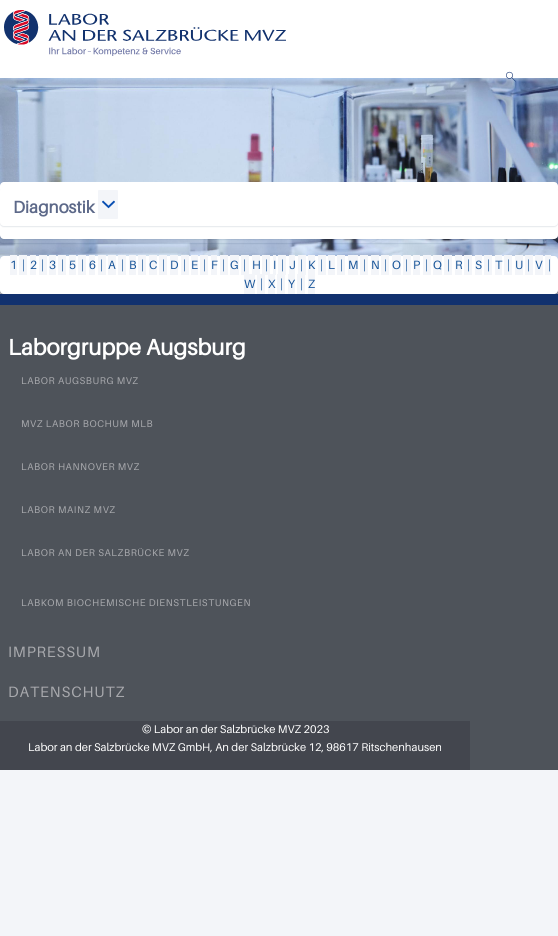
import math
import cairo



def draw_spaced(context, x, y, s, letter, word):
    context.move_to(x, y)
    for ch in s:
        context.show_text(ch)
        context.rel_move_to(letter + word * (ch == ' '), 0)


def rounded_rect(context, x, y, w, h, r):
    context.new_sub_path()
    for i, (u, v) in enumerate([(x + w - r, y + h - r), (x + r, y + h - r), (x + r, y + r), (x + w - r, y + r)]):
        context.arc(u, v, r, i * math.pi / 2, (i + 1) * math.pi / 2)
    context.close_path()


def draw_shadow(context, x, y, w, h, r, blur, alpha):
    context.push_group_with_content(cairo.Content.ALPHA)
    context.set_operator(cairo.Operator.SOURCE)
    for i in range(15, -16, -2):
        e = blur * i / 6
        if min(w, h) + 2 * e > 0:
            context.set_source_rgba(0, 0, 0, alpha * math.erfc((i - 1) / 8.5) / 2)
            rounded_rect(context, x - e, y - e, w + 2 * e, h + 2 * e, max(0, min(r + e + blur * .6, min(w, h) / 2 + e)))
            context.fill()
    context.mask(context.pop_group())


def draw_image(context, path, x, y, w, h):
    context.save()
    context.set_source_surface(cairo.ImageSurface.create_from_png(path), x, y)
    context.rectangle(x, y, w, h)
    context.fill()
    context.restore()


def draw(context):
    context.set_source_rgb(243 / 255, 245 / 255, 249 / 255)
    context.paint()
    context.set_source_rgb(1, 1, 1)
    context.rectangle(0, 0, 558, 78)
    context.fill()
    draw_image(context, "images/1.png", 0, 78, 558, 216)
    draw_image(context, "images/2.png", 4, 10, 282, 46)
    draw_image(context, "images/3.png", 506, 71, 10, 11)
    context.save()
    context.set_fill_rule(cairo.FillRule.EVEN_ODD)
    context.new_path()
    context.move_to(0, 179)
    context.line_to(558, 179)
    context.line_to(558, 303)
    context.line_to(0, 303)
    context.close_path()
    context.move_to(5, 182)
    context.line_to(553, 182)
    context.curve_to(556, 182, 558, 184, 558, 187)
    context.line_to(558, 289)
    context.curve_to(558, 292, 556, 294, 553, 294)
    context.line_to(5, 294)
    context.curve_to(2, 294, 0, 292, 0, 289)
    context.line_to(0, 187)
    context.curve_to(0, 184, 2, 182, 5, 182)
    context.close_path()
    context.clip()
    context.set_source_rgb(0, 31 / 255, 65 / 255)
    draw_shadow(context, 0, 185, 558, 112, 5, 1.5, 0.1)
    context.restore()
    context.set_source_rgb(0, 31 / 255, 65 / 255)
    draw_shadow(context, 0, 183, 558, 57, 4, 0.5, 0.1)
    context.set_source_rgb(1, 1, 1)
    rounded_rect(context, 0, 182, 558, 57, 4)
    context.fill()
    context.set_source_rgb(0, 31 / 255, 65 / 255)
    draw_shadow(context, 0, 188, 558, 39, 4, 0.5, 0.1)
    context.set_source_rgb(1, 1, 1)
    rounded_rect(context, 0, 187, 558, 39, 4)
    context.fill()
    context.set_source_rgb(243 / 255, 245 / 255, 249 / 255)
    rounded_rect(context, 98, 190, 20, 29, 1)
    context.fill()
    draw_image(context, "images/4.png", 102, 200, 13, 9)
    context.save()
    context.set_fill_rule(cairo.FillRule.EVEN_ODD)
    context.new_path()
    context.move_to(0, 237)
    context.line_to(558, 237)
    context.line_to(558, 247)
    context.line_to(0, 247)
    context.close_path()
    context.move_to(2, 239)
    context.line_to(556, 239)
    context.curve_to(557, 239, 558, 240, 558, 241)
    context.curve_to(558, 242, 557, 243, 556, 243)
    context.line_to(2, 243)
    context.curve_to(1, 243, 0, 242, 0, 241)
    context.curve_to(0, 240, 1, 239, 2, 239)
    context.close_path()
    context.clip()
    context.set_source_rgb(0, 31 / 255, 65 / 255)
    draw_shadow(context, 0, 240, 558, 4, 2, 0.5, 0.1)
    context.restore()
    context.set_source_rgb(0, 31 / 255, 65 / 255)
    draw_shadow(context, 0, 257, 558, 38, 4, 0.5, 0.1)
    context.set_source_rgb(1, 1, 1)
    rounded_rect(context, 0, 256, 558, 38, 4)
    context.fill()
    context.set_source_rgb(243 / 255, 245 / 255, 249 / 255)
    context.rectangle(10, 255, 7, 20)
    context.fill()
    context.rectangle(19, 255, 8, 20)
    context.fill()
    context.rectangle(30, 255, 6, 20)
    context.fill()
    context.rectangle(39, 255, 8, 20)
    context.fill()
    context.rectangle(49, 255, 7, 20)
    context.fill()
    context.rectangle(58, 255, 8, 20)
    context.fill()
    context.rectangle(69, 255, 7, 20)
    context.fill()
    context.rectangle(78, 255, 8, 20)
    context.fill()
    context.rectangle(89, 255, 6, 20)
    context.fill()
    context.rectangle(98, 255, 8, 20)
    context.fill()
    context.rectangle(108, 255, 8, 20)
    context.fill()
    context.rectangle(118, 255, 8, 20)
    context.fill()
    context.rectangle(129, 255, 7, 20)
    context.fill()
    context.rectangle(138, 255, 8, 20)
    context.fill()
    context.rectangle(149, 255, 8, 20)
    context.fill()
    context.rectangle(159, 255, 8, 20)
    context.fill()
    context.rectangle(170, 255, 8, 20)
    context.fill()
    context.rectangle(181, 255, 8, 20)
    context.fill()
    context.rectangle(191, 255, 7, 20)
    context.fill()
    context.rectangle(200, 255, 8, 20)
    context.fill()
    context.rectangle(211, 255, 6, 20)
    context.fill()
    context.rectangle(220, 255, 8, 20)
    context.fill()
    context.rectangle(230, 255, 9, 20)
    context.fill()
    context.rectangle(241, 255, 8, 20)
    context.fill()
    context.rectangle(252, 255, 8, 20)
    context.fill()
    context.rectangle(262, 255, 8, 20)
    context.fill()
    context.rectangle(273, 255, 3, 20)
    context.fill()
    context.rectangle(278, 255, 8, 20)
    context.fill()
    context.rectangle(289, 255, 6, 20)
    context.fill()
    context.rectangle(298, 255, 8, 20)
    context.fill()
    context.rectangle(308, 255, 7, 39)
    context.fill()
    context.rectangle(318, 255, 8, 20)
    context.fill()
    context.rectangle(328, 255, 7, 20)
    context.fill()
    context.rectangle(337, 255, 8, 20)
    context.fill()
    context.rectangle(348, 255, 10, 20)
    context.fill()
    context.rectangle(360, 255, 8, 20)
    context.fill()
    context.rectangle(371, 255, 8, 20)
    context.fill()
    context.rectangle(381, 255, 8, 20)
    context.fill()
    context.rectangle(392, 255, 9, 20)
    context.fill()
    context.rectangle(403, 255, 8, 20)
    context.fill()
    context.rectangle(413, 255, 7, 20)
    context.fill()
    context.rectangle(423, 255, 8, 20)
    context.fill()
    context.rectangle(433, 255, 9, 20)
    context.fill()
    context.rectangle(444, 255, 8, 20)
    context.fill()
    context.rectangle(455, 255, 7, 20)
    context.fill()
    context.rectangle(464, 255, 8, 20)
    context.fill()
    context.rectangle(475, 255, 7, 20)
    context.fill()
    context.rectangle(484, 255, 8, 20)
    context.fill()
    context.rectangle(495, 255, 7, 20)
    context.fill()
    context.rectangle(504, 255, 8, 20)
    context.fill()
    context.rectangle(515, 255, 8, 20)
    context.fill()
    context.rectangle(525, 255, 8, 20)
    context.fill()
    context.rectangle(535, 255, 8, 20)
    context.fill()
    context.rectangle(545, 255, 6, 20)
    context.fill()
    context.rectangle(244, 274, 11, 20)
    context.fill()
    context.rectangle(257, 274, 8, 20)
    context.fill()
    context.rectangle(268, 274, 7, 20)
    context.fill()
    context.rectangle(277, 274, 8, 20)
    context.fill()
    context.rectangle(288, 274, 7, 20)
    context.fill()
    context.rectangle(297, 274, 8, 20)
    context.fill()
    context.set_source_rgb(78 / 255, 83 / 255, 90 / 255)
    context.rectangle(0, 305, 558, 465)
    context.fill()
    context.set_source_rgb(17 / 255, 49 / 255, 110 / 255)
    context.rectangle(0, 294, 558, 11)
    context.fill()
    context.set_source_rgb(67 / 255, 70 / 255, 78 / 255)
    context.rectangle(0, 721, 470, 49)
    context.fill()
    context.select_font_face("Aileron", cairo.FontSlant.NORMAL, cairo.FontWeight.BOLD)
    context.set_font_size(17)
    context.set_source_rgb(93 / 255, 105 / 255, 137 / 255)
    context.move_to(13, 213)
    context.show_text("Diagnostik")
    context.select_font_face("Aileron")
    context.set_font_size(12)
    context.set_source_rgb(24 / 255, 85 / 255, 153 / 255)
    context.move_to(10, 269)
    context.show_text("1")
    context.move_to(22, 269)
    context.show_text("|")
    context.move_to(30, 269)
    context.show_text("2")
    context.move_to(41, 269)
    context.show_text("|")
    context.move_to(49, 269)
    context.show_text("3")
    context.move_to(61, 269)
    context.show_text("|")
    context.move_to(69, 269)
    context.show_text("5")
    context.move_to(81, 269)
    context.show_text("|")
    context.move_to(89, 269)
    context.show_text("6")
    context.move_to(100, 269)
    context.show_text("|")
    context.move_to(108, 269)
    context.show_text("A")
    context.move_to(121, 269)
    context.show_text("|")
    context.move_to(129, 269)
    context.show_text("B")
    context.move_to(141, 269)
    context.show_text("|")
    context.move_to(149, 269)
    context.show_text("C")
    context.move_to(162, 269)
    context.show_text("|")
    context.move_to(170, 269)
    context.show_text("D")
    context.move_to(183, 269)
    context.show_text("|")
    context.move_to(191, 269)
    context.show_text("E")
    context.move_to(203, 269)
    context.show_text("|")
    context.move_to(211, 269)
    context.show_text("F")
    context.move_to(222, 269)
    context.show_text("|")
    context.move_to(230, 269)
    context.show_text("G")
    context.move_to(243, 269)
    context.show_text("|")
    context.move_to(252, 269)
    context.show_text("H")
    context.move_to(265, 269)
    context.show_text("|")
    context.move_to(273, 269)
    context.show_text("I")
    context.move_to(281, 269)
    context.show_text("|")
    context.move_to(289, 269)
    context.show_text("J")
    context.move_to(300, 269)
    context.show_text("|")
    context.move_to(308, 269)
    context.show_text("K")
    context.move_to(320, 269)
    context.show_text("|")
    context.move_to(328, 269)
    context.show_text("L")
    context.move_to(340, 269)
    context.show_text("|")
    context.move_to(348, 269)
    context.show_text("M")
    context.move_to(363, 269)
    context.show_text("|")
    context.move_to(371, 269)
    context.show_text("N")
    context.move_to(384, 269)
    context.show_text("|")
    context.move_to(392, 269)
    context.show_text("O")
    context.move_to(405, 269)
    context.show_text("|")
    context.move_to(413, 269)
    context.show_text("P")
    context.move_to(425, 269)
    context.show_text("|")
    context.move_to(433, 269)
    context.show_text("Q")
    context.move_to(447, 269)
    context.show_text("|")
    context.move_to(455, 269)
    context.show_text("R")
    context.move_to(467, 269)
    context.show_text("|")
    context.move_to(475, 269)
    context.show_text("S")
    context.move_to(487, 269)
    context.show_text("|")
    context.move_to(495, 269)
    context.show_text("T")
    context.move_to(507, 269)
    context.show_text("|")
    context.move_to(515, 269)
    context.show_text("U")
    context.move_to(527, 269)
    context.show_text("|")
    context.move_to(535, 269)
    context.show_text("V")
    context.move_to(548, 269)
    context.show_text("|")
    context.move_to(244, 288)
    context.show_text("W")
    context.move_to(260, 288)
    context.show_text("|")
    context.move_to(268, 288)
    context.show_text("X")
    context.move_to(280, 288)
    context.show_text("|")
    context.move_to(288, 288)
    context.show_text("Y")
    context.move_to(300, 288)
    context.show_text("|")
    context.move_to(308, 288)
    context.show_text("Z")
    context.select_font_face("Aileron", cairo.FontSlant.NORMAL, cairo.FontWeight.BOLD)
    context.set_font_size(22.4)
    context.set_source_rgb(1, 1, 1)
    context.move_to(8, 355)
    context.show_text("Laborgruppe Augsburg")
    context.select_font_face("Aileron")
    context.set_font_size(9.75)
    context.set_source_rgb(168 / 255, 169 / 255, 173 / 255)
    draw_spaced(context, 21, 384, "LABOR AUGSBURG MVZ", 0.6, 0)
    draw_spaced(context, 21, 427, "MVZ LABOR BOCHUM MLB", 0.6, 0)
    draw_spaced(context, 21, 470, "LABOR HANNOVER MVZ", 0.6, 0)
    draw_spaced(context, 21, 513, "LABOR MAINZ MVZ", 0.6, 0)
    draw_spaced(context, 21, 556, "LABOR AN DER SALZBRÜCKE MVZ", 0.6, 0)
    draw_spaced(context, 21, 606, "LABKOM BIOCHEMISCHE DIENSTLEISTUNGEN", 0.6, 0)
    context.set_font_size(15)
    draw_spaced(context, 8, 657, "IMPRESSUM", 0.9, 0)
    draw_spaced(context, 8, 697, "DATENSCHUTZ", 0.9, 0)
    context.set_font_size(11.2)
    context.set_source_rgb(1, 1, 1)
    context.move_to(142, 733)
    context.show_text("© Labor an der Salzbrücke MVZ 2023")
    context.move_to(28, 751)
    context.show_text("Labor an der Salzbrücke MVZ GmbH, An der Salzbrücke 12, 98617 Ritschenhausen")


surface = cairo.ImageSurface(cairo.Format.RGB24, 558, 936)
context = cairo.Context(surface)
options = cairo.FontOptions()
options.set_hint_metrics(cairo.HintMetrics.OFF)
options.set_hint_style(cairo.HintStyle.NONE)
context.set_font_options(options)
context.set_miter_limit(4)
draw(context)
surface.write_to_png("out.png")
